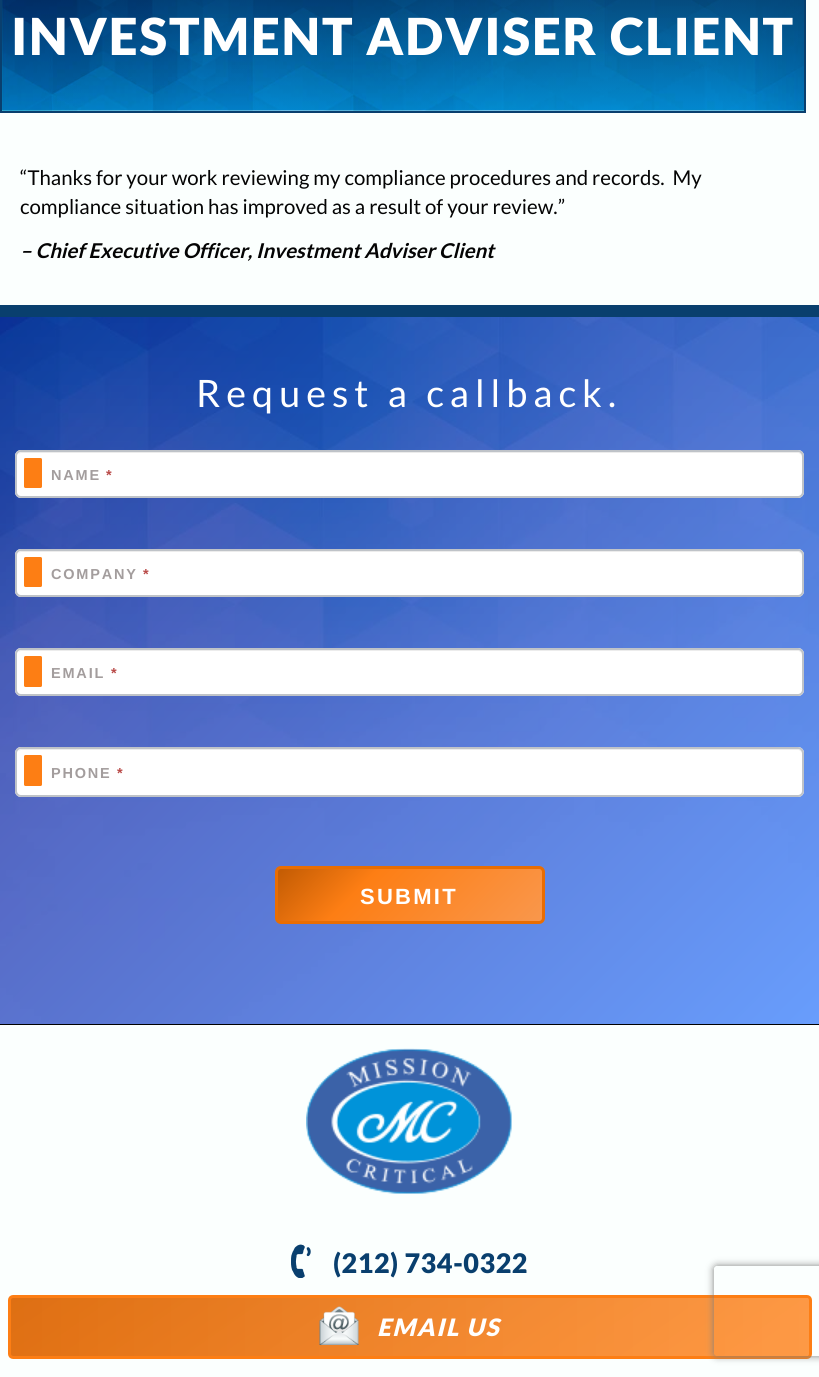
import math
import cairo



def draw_spaced(context, x, y, s, letter, word):
    context.move_to(x, y)
    for ch in s:
        context.show_text(ch)
        context.rel_move_to(letter + word * (ch == ' '), 0)


def rounded_rect(context, x, y, w, h, r):
    context.new_sub_path()
    for i, (u, v) in enumerate([(x + w - r, y + h - r), (x + r, y + h - r), (x + r, y + r), (x + w - r, y + r)]):
        context.arc(u, v, r, i * math.pi / 2, (i + 1) * math.pi / 2)
    context.close_path()


def draw_shadow(context, x, y, w, h, r, blur, alpha):
    context.push_group_with_content(cairo.Content.ALPHA)
    context.set_operator(cairo.Operator.SOURCE)
    for i in range(15, -16, -2):
        e = blur * i / 6
        if min(w, h) + 2 * e > 0:
            context.set_source_rgba(0, 0, 0, alpha * math.erfc((i - 1) / 8.5) / 2)
            rounded_rect(context, x - e, y - e, w + 2 * e, h + 2 * e, max(0, min(r + e + blur * .6, min(w, h) / 2 + e)))
            context.fill()
    context.mask(context.pop_group())


def draw_image(context, path, x, y, w, h):
    context.save()
    context.set_source_surface(cairo.ImageSurface.create_from_png(path), x, y)
    context.rectangle(x, y, w, h)
    context.fill()
    context.restore()


def draw(context):
    context.set_source_rgb(251 / 255, 1, 254 / 255)
    context.paint()
    draw_image(context, "images/1.png", 2, 0, 802, 111)
    context.rectangle(1, -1, 804, 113)
    context.set_source_rgb(9 / 255, 63 / 255, 110 / 255)
    context.stroke()
    context.set_source_rgb(0, 0, 0)
    context.rectangle(0, 1024, 819, 1)
    context.fill()
    draw_image(context, "images/2.png", 0, 317, 819, 707)
    context.set_source_rgb(9 / 255, 63 / 255, 110 / 255)
    context.rectangle(0, 305, 819, 12)
    context.fill()
    context.set_source_rgb(1, 1, 1)
    rounded_rect(context, 15, 450, 789, 48, 6)
    context.fill()
    context.set_source_rgb(236 / 255, 236 / 255, 236 / 255)
    context.new_path()
    context.move_to(21, 453)
    context.line_to(798, 453)
    context.curve_to(800, 453, 802, 455, 802, 458)
    context.line_to(802, 495)
    context.curve_to(803, 494, 803, 493, 803, 492)
    context.line_to(803, 457)
    context.curve_to(803, 454, 801, 452, 798, 452)
    context.line_to(22, 452)
    context.curve_to(20, 452, 19, 453, 18, 454)
    context.close_path()
    context.fill()
    rounded_rect(context, 16, 451, 787, 46, 5)
    context.set_source_rgb(191 / 255, 195 / 255, 200 / 255)
    context.stroke()
    context.set_source_rgb(253 / 255, 126 / 255, 20 / 255)
    rounded_rect(context, 24, 458, 18, 30, 1.5)
    context.fill()
    context.set_source_rgb(1, 1, 1)
    rounded_rect(context, 15, 549, 789, 48, 6)
    context.fill()
    context.set_source_rgb(236 / 255, 236 / 255, 236 / 255)
    context.new_path()
    context.move_to(21, 552)
    context.line_to(798, 552)
    context.curve_to(800, 552, 802, 554, 802, 556)
    context.line_to(802, 592)
    context.line_to(801, 595)
    context.curve_to(802, 594, 803, 592, 803, 591)
    context.line_to(803, 556)
    context.curve_to(803, 553, 801, 551, 798, 551)
    context.line_to(22, 551)
    context.curve_to(20, 551, 19, 552, 18, 553)
    context.close_path()
    context.fill()
    rounded_rect(context, 16, 550, 787, 46, 5)
    context.set_source_rgb(191 / 255, 195 / 255, 200 / 255)
    context.stroke()
    context.set_source_rgb(253 / 255, 126 / 255, 20 / 255)
    rounded_rect(context, 24, 557, 18, 30, 1.5)
    context.fill()
    context.set_source_rgb(1, 1, 1)
    rounded_rect(context, 15, 648, 789, 48, 6)
    context.fill()
    context.set_source_rgb(236 / 255, 236 / 255, 236 / 255)
    context.new_path()
    context.move_to(21, 651)
    context.line_to(798, 651)
    context.curve_to(800, 651, 802, 653, 802, 656)
    context.line_to(802, 693)
    context.curve_to(803, 692, 803, 691, 803, 690)
    context.line_to(803, 655)
    context.curve_to(803, 652, 801, 650, 798, 650)
    context.line_to(22, 650)
    context.curve_to(20, 650, 19, 651, 18, 652)
    context.close_path()
    context.fill()
    rounded_rect(context, 16, 649, 787, 46, 5)
    context.set_source_rgb(191 / 255, 195 / 255, 200 / 255)
    context.stroke()
    context.set_source_rgb(253 / 255, 126 / 255, 20 / 255)
    rounded_rect(context, 24, 656, 18, 31, 1.5)
    context.fill()
    context.set_source_rgb(1, 1, 1)
    rounded_rect(context, 15, 747, 789, 50, 6)
    context.fill()
    context.set_source_rgb(236 / 255, 236 / 255, 236 / 255)
    context.new_path()
    context.move_to(21, 750)
    context.line_to(798, 750)
    context.curve_to(800, 750, 802, 752, 802, 754)
    context.line_to(802, 793)
    context.curve_to(803, 792, 803, 791, 803, 790)
    context.line_to(803, 754)
    context.curve_to(803, 751, 801, 749, 798, 749)
    context.line_to(22, 749)
    context.curve_to(20, 749, 19, 750, 18, 751)
    context.close_path()
    context.fill()
    rounded_rect(context, 16, 748, 787, 48, 5)
    context.set_source_rgb(191 / 255, 195 / 255, 200 / 255)
    context.stroke()
    context.set_source_rgb(253 / 255, 126 / 255, 20 / 255)
    rounded_rect(context, 24, 755, 18, 31, 1.5)
    context.fill()
    gradient = cairo.LinearGradient(330, 816, 489, 974)
    gradient.add_color_stop_rgba(0, 194 / 255, 91 / 255, 3 / 255, 1)
    gradient.add_color_stop_rgba(0.32, 253 / 255, 126 / 255, 20 / 255, 1)
    gradient.add_color_stop_rgba(1, 249 / 255, 151 / 255, 76 / 255, 1)
    context.set_source(gradient)
    context.rectangle(278, 869, 264, 52)
    context.fill()
    rounded_rect(context, 276.5, 867.5, 267, 55, 4.5)
    context.set_source_rgb(233 / 255, 109 / 255, 2 / 255)
    context.set_line_width(3)
    context.stroke()
    gradient = cairo.LinearGradient(235, 1078, 555, 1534)
    gradient.add_color_stop_rgba(0, 217 / 255, 103 / 255, 8 / 255, 1)
    gradient.add_color_stop_rgba(0.95, 253 / 255, 126 / 255, 20 / 255, 1)
    context.set_source(gradient)
    context.rectangle(11, 1298, 798, 58)
    context.fill()
    rounded_rect(context, 9.5, 1296.5, 801, 61, 3.5)
    context.set_source_rgb(253 / 255, 126 / 255, 20 / 255)
    context.stroke()
    gradient = cairo.LinearGradient(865, 1327, -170, 1327)
    gradient.add_color_stop_rgba(0, 1, 1, 1, 0.22)
    gradient.add_color_stop_rgba(1, 1, 1, 1, 0)
    context.set_source(gradient)
    context.new_path()
    context.move_to(12, 1298)
    context.curve_to(12, 1298, 11, 1299, 11, 1300)
    context.line_to(11, 1354)
    context.curve_to(11, 1355, 12, 1356, 12, 1356)
    context.line_to(808, 1356)
    context.curve_to(808, 1356, 809, 1355, 809, 1354)
    context.line_to(809, 1300)
    context.curve_to(809, 1299, 808, 1298, 808, 1298)
    context.close_path()
    context.fill()
    context.save()
    context.set_fill_rule(cairo.FillRule.EVEN_ODD)
    context.new_path()
    context.move_to(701, 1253)
    context.line_to(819, 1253)
    context.line_to(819, 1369)
    context.line_to(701, 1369)
    context.close_path()
    context.move_to(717, 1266)
    context.line_to(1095, 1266)
    context.curve_to(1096.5, 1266, 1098, 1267.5, 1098, 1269)
    context.line_to(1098, 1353)
    context.curve_to(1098, 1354.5, 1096.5, 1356, 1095, 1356)
    context.line_to(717, 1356)
    context.curve_to(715.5, 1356, 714, 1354.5, 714, 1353)
    context.line_to(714, 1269)
    context.curve_to(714, 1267.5, 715.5, 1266, 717, 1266)
    context.close_path()
    context.clip()
    context.set_source_rgb(128 / 255, 128 / 255, 128 / 255)
    draw_shadow(context, 714, 1266, 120, 90, 3, 4, 1)
    context.restore()
    draw_image(context, "images/3.png", 306, 1048, 206, 146)
    draw_image(context, "images/4.png", 291, 1244, 20, 34)
    draw_image(context, "images/5.png", 319, 1306, 40, 39)
    context.select_font_face("Lato Black")
    context.set_font_size(51)
    context.set_source_rgb(1, 1, 1)
    draw_spaced(context, 11, 55, "INVESTMENT ADVISER CLIENT", 1.8, 0)
    context.select_font_face("Lato")
    context.set_font_size(20.4)
    context.set_source_rgb(4 / 255, 4 / 255, 4 / 255)
    context.move_to(20, 185)
    context.show_text("“Thanks for your work reviewing my compliance procedures and records.  My")
    context.move_to(20, 214)
    context.show_text("compliance situation has improved as a result of your review.”")
    context.select_font_face("Lato", cairo.FontSlant.ITALIC, cairo.FontWeight.BOLD)
    context.move_to(20, 258)
    context.show_text("– Chief Executive Officer, Investment Adviser Client")
    context.select_font_face("Lato")
    context.set_font_size(37.75)
    context.set_source_rgb(1, 1, 1)
    draw_spaced(context, 196, 407, "Request a callback.", 6, 0)
    context.select_font_face("Liberation Sans", cairo.FontSlant.NORMAL, cairo.FontWeight.BOLD)
    context.set_font_size(14.5)
    context.set_source_rgb(163 / 255, 157 / 255, 157 / 255)
    draw_spaced(context, 51, 480, "NAME", 1.8, 0)
    context.set_source_rgb(185 / 255, 74 / 255, 72 / 255)
    draw_spaced(context, 106, 480, "*", 1.8, 0)
    context.set_source_rgb(163 / 255, 157 / 255, 157 / 255)
    draw_spaced(context, 51, 579, "COMPANY", 1.8, 0)
    context.set_source_rgb(185 / 255, 74 / 255, 72 / 255)
    draw_spaced(context, 143, 579, "*", 1.8, 0)
    context.set_source_rgb(163 / 255, 157 / 255, 157 / 255)
    draw_spaced(context, 51, 678, "EMAIL", 1.8, 0)
    context.set_source_rgb(185 / 255, 74 / 255, 72 / 255)
    draw_spaced(context, 111, 678, "*", 1.8, 0)
    context.set_source_rgb(163 / 255, 157 / 255, 157 / 255)
    draw_spaced(context, 51, 778, "PHONE", 1.8, 0)
    context.set_source_rgb(185 / 255, 74 / 255, 72 / 255)
    draw_spaced(context, 117, 778, "*", 1.8, 0)
    context.set_font_size(22)
    context.set_source_rgb(1, 1, 1)
    draw_spaced(context, 360, 904, "SUBMIT", 2.25, 0)
    context.select_font_face("Lato Black")
    context.set_font_size(27)
    context.set_source_rgb(9 / 255, 63 / 255, 110 / 255)
    draw_spaced(context, 333, 1273, "(212) 734-0322", 0.5, 0)
    context.select_font_face("Lato Black", cairo.FontSlant.ITALIC)
    context.set_font_size(24)
    context.set_source_rgb(1, 1, 1)
    draw_spaced(context, 377, 1336, "EMAIL US", 1.8, 0)


surface = cairo.ImageSurface(cairo.Format.RGB24, 819, 1377)
context = cairo.Context(surface)
options = cairo.FontOptions()
options.set_hint_metrics(cairo.HintMetrics.OFF)
options.set_hint_style(cairo.HintStyle.NONE)
context.set_font_options(options)
context.set_miter_limit(4)
draw(context)
surface.write_to_png("out.png")
